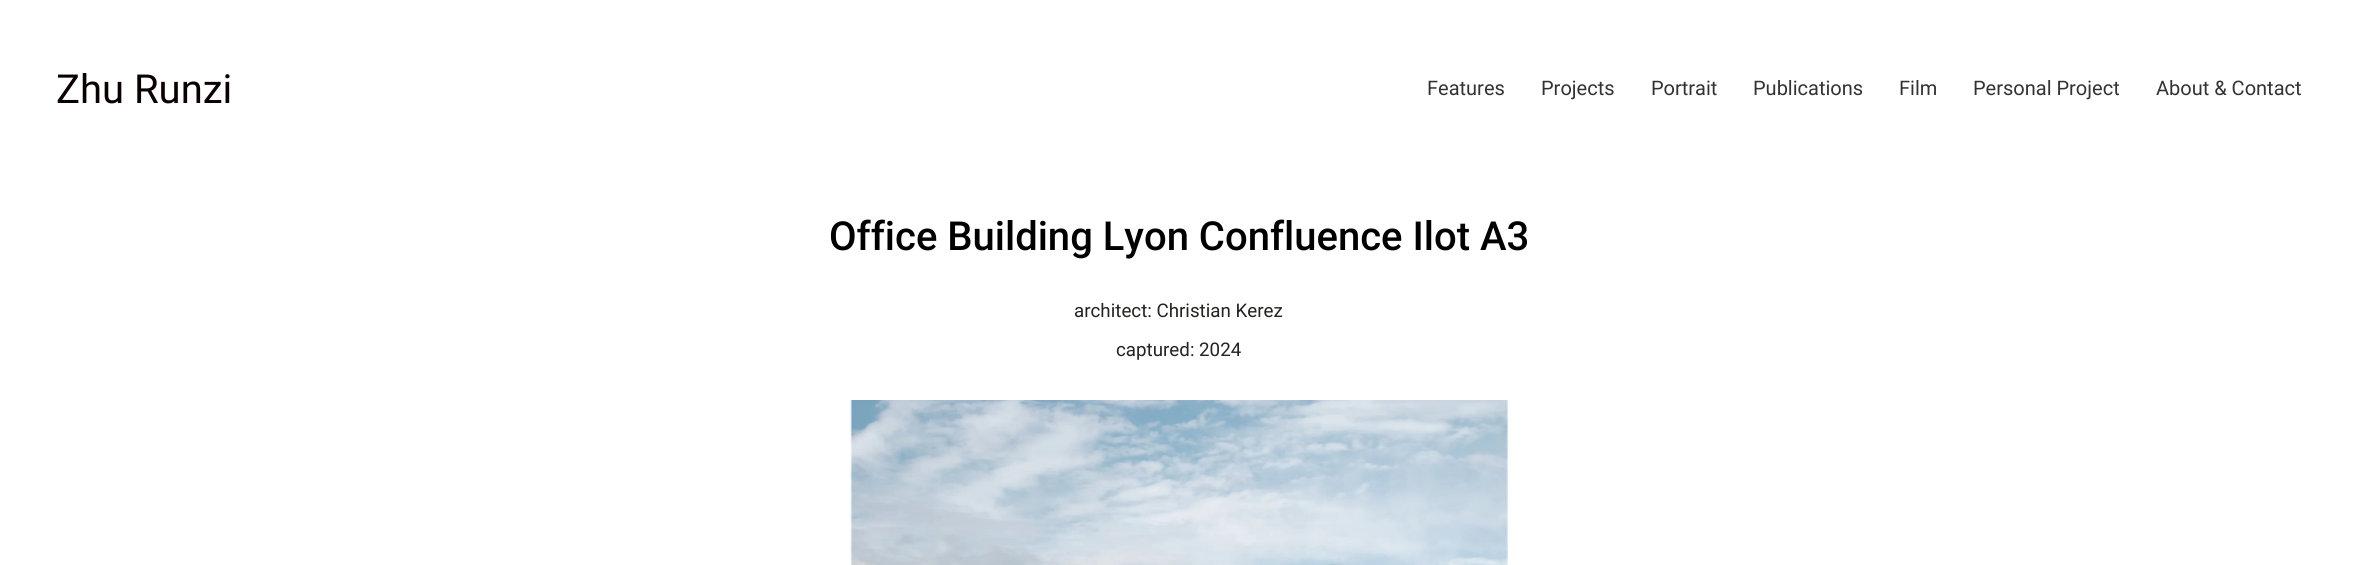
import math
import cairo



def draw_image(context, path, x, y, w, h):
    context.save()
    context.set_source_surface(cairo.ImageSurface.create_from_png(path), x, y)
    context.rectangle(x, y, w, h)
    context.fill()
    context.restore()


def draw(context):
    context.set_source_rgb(1, 1, 1)
    context.paint()
    draw_image(context, "images/1.png", 850, 400, 658, 165)
    context.select_font_face("Roboto")
    context.set_font_size(40)
    context.set_source_rgb(10 / 255, 0, 0)
    context.move_to(56, 103)
    context.show_text("Zhu Runzi")
    context.set_font_size(20)
    context.set_source_rgb(51 / 255, 51 / 255, 51 / 255)
    context.move_to(1427, 95)
    context.show_text("Features")
    context.move_to(1541, 95)
    context.show_text("Projects")
    context.move_to(1651, 95)
    context.show_text("Portrait")
    context.move_to(1753, 95)
    context.show_text("Publications")
    context.move_to(1899, 95)
    context.show_text("Film")
    context.move_to(1973, 95)
    context.show_text("Personal Project")
    context.move_to(2156, 95)
    context.show_text("About & Contact")
    context.select_font_face("Roboto Medium")
    context.set_font_size(40)
    context.set_source_rgb(0, 0, 0)
    context.move_to(829, 250)
    context.show_text("Office Building Lyon Confluence Ilot A3")
    context.select_font_face("Roboto")
    context.set_font_size(18.75)
    context.set_source_rgb(36 / 255, 35 / 255, 33 / 255)
    context.move_to(1074, 317)
    context.show_text("architect: Christian Kerez")
    context.move_to(1116, 356)
    context.show_text("captured: 2024")


surface = cairo.ImageSurface(cairo.Format.RGB24, 2357, 565)
context = cairo.Context(surface)
options = cairo.FontOptions()
options.set_hint_metrics(cairo.HintMetrics.OFF)
options.set_hint_style(cairo.HintStyle.NONE)
context.set_font_options(options)
context.set_miter_limit(4)
draw(context)
surface.write_to_png("out.png")
